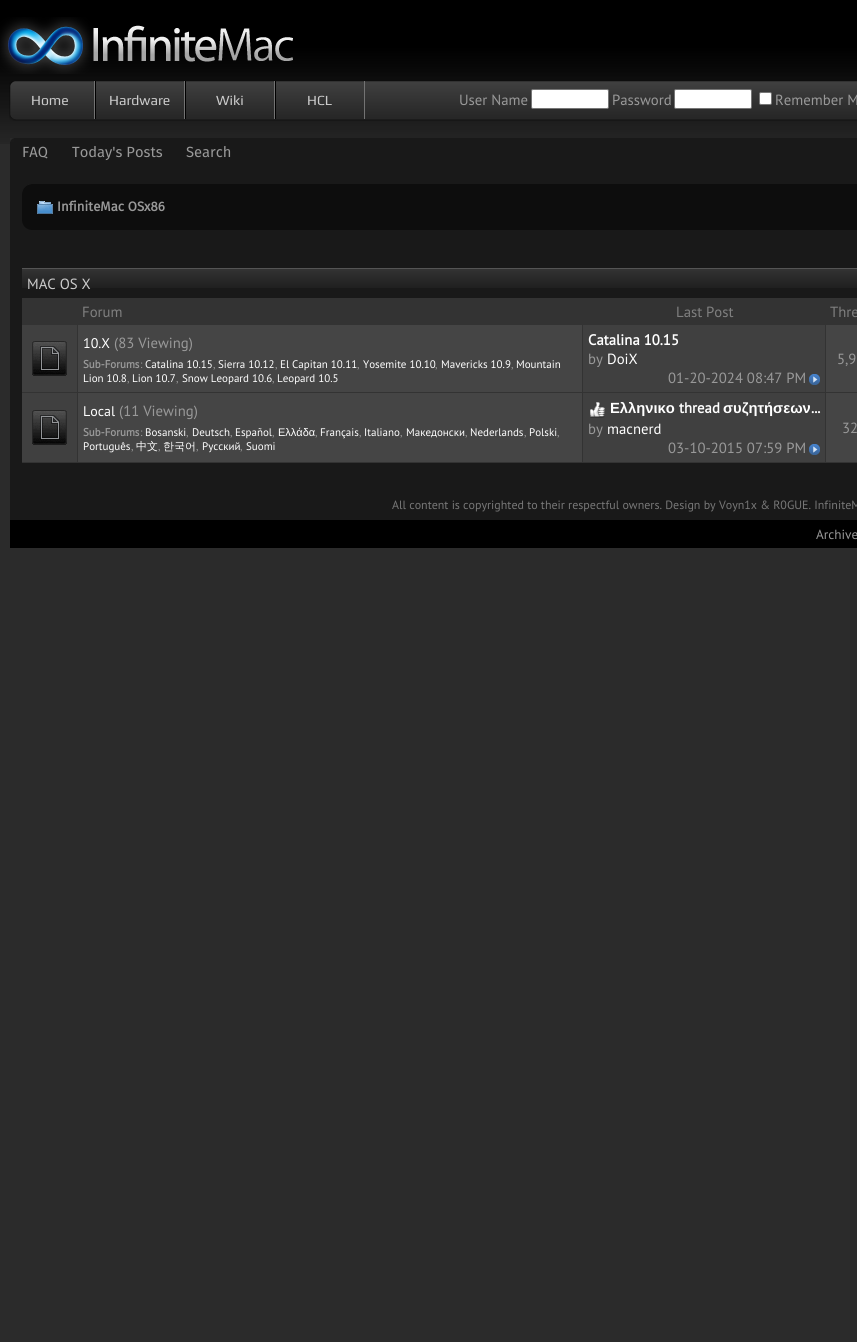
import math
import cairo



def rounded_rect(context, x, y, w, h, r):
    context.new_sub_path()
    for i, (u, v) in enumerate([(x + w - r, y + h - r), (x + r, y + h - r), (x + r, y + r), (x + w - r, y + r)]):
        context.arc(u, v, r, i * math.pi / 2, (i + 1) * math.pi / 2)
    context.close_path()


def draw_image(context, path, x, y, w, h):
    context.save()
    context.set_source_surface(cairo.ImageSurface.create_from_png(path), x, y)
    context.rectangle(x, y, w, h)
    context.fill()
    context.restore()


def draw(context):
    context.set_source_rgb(43 / 255, 43 / 255, 43 / 255)
    context.paint()
    draw_image(context, "images/1.png", 0, 0, 857, 144)
    draw_image(context, "images/2.png", 0, 17, 293, 57)
    draw_image(context, "images/3.png", 9, 81, 848, 40)
    context.set_source_rgb(115 / 255, 115 / 255, 115 / 255)
    context.rectangle(94, 81, 1, 38)
    context.fill()
    context.rectangle(184, 81, 1, 38)
    context.fill()
    context.set_source_rgb(0, 0, 0)
    context.rectangle(95, 81, 1, 38)
    context.fill()
    context.set_source_rgb(115 / 255, 115 / 255, 115 / 255)
    context.rectangle(274, 81, 1, 38)
    context.fill()
    context.set_source_rgb(0, 0, 0)
    context.rectangle(185, 81, 1, 38)
    context.fill()
    context.set_source_rgb(115 / 255, 115 / 255, 115 / 255)
    context.rectangle(364, 81, 1, 38)
    context.fill()
    context.set_source_rgb(0, 0, 0)
    context.rectangle(275, 81, 1, 38)
    context.fill()
    context.set_source_rgb(1, 1, 1)
    rounded_rect(context, 531.5, 89.5, 77, 19, 1.5)
    context.fill_preserve()
    context.set_source_rgb(118 / 255, 118 / 255, 118 / 255)
    context.set_line_width(1)
    context.stroke()
    context.set_source_rgb(1, 1, 1)
    rounded_rect(context, 674.5, 89.5, 77, 19, 1.5)
    context.fill_preserve()
    context.set_source_rgb(118 / 255, 118 / 255, 118 / 255)
    context.stroke()
    context.set_source_rgb(1, 1, 1)
    rounded_rect(context, 759.5, 92.5, 12, 12, 1.5)
    context.fill_preserve()
    context.set_source_rgb(118 / 255, 118 / 255, 118 / 255)
    context.stroke()
    context.set_source_rgb(25 / 255, 25 / 255, 25 / 255)
    context.rectangle(10, 138, 847, 382)
    context.fill()
    draw_image(context, "images/4.png", 10, 138, 4, 4)
    draw_image(context, "images/5.png", 22, 184, 10, 10)
    context.set_source_rgb(13 / 255, 13 / 255, 13 / 255)
    rounded_rect(context, 22, 184, 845, 46, 10)
    context.fill()
    draw_image(context, "images/6.png", 37, 201, 16, 13)
    draw_image(context, "images/7.png", 22, 269, 835, 19)
    context.set_source_rgb(85 / 255, 85 / 255, 85 / 255)
    context.rectangle(22, 268, 835, 1)
    context.fill()
    context.set_source_rgb(51 / 255, 51 / 255, 51 / 255)
    context.rectangle(22, 298, 835, 27)
    context.fill()
    context.set_source_rgb(64 / 255, 64 / 255, 64 / 255)
    context.rectangle(22, 325, 55, 67)
    context.fill()
    context.set_source_rgb(51 / 255, 51 / 255, 51 / 255)
    context.rectangle(77, 325, 1, 138)
    context.fill()
    context.rectangle(22, 392, 56, 1)
    context.fill()
    draw_image(context, "images/8.png", 32, 341, 35, 35)
    context.set_source_rgb(69 / 255, 69 / 255, 69 / 255)
    context.rectangle(78, 325, 504, 67)
    context.fill()
    context.set_source_rgb(51 / 255, 51 / 255, 51 / 255)
    context.rectangle(582, 325, 1, 138)
    context.fill()
    context.rectangle(78, 392, 505, 1)
    context.fill()
    context.set_source_rgb(64 / 255, 64 / 255, 64 / 255)
    context.rectangle(583, 325, 242, 67)
    context.fill()
    context.set_source_rgb(51 / 255, 51 / 255, 51 / 255)
    context.rectangle(825, 325, 1, 138)
    context.fill()
    context.rectangle(583, 392, 274, 1)
    context.fill()
    draw_image(context, "images/9.png", 809, 374, 11, 11)
    context.set_source_rgb(69 / 255, 69 / 255, 69 / 255)
    context.rectangle(826, 325, 31, 67)
    context.fill()
    context.set_source_rgb(64 / 255, 64 / 255, 64 / 255)
    context.rectangle(22, 393, 55, 69)
    context.fill()
    context.set_source_rgb(51 / 255, 51 / 255, 51 / 255)
    context.rectangle(22, 462, 835, 1)
    context.fill()
    draw_image(context, "images/8.png", 32, 410, 35, 35)
    context.set_source_rgb(69 / 255, 69 / 255, 69 / 255)
    context.rectangle(78, 393, 504, 69)
    context.fill()
    context.set_source_rgb(64 / 255, 64 / 255, 64 / 255)
    context.rectangle(583, 393, 242, 69)
    context.fill()
    draw_image(context, "images/10.png", 590, 402, 15, 16)
    draw_image(context, "images/9.png", 809, 444, 11, 11)
    context.set_source_rgb(69 / 255, 69 / 255, 69 / 255)
    context.rectangle(826, 393, 31, 69)
    context.fill()
    context.set_source_rgb(0, 0, 0)
    context.rectangle(10, 520, 847, 28)
    context.fill()
    context.select_font_face("Play")
    context.set_font_size(14)
    context.set_source_rgb(204 / 255, 204 / 255, 204 / 255)
    context.move_to(31, 105)
    context.show_text("Home")
    context.move_to(109, 105)
    context.show_text("Hardware")
    context.move_to(216, 105)
    context.show_text("Wiki")
    context.move_to(307, 105)
    context.show_text("HCL")
    context.select_font_face("PT Sans")
    context.set_font_size(14.75)
    context.set_source_rgb(153 / 255, 153 / 255, 153 / 255)
    context.move_to(459, 105)
    context.show_text("User Name")
    context.move_to(612, 105)
    context.show_text("Password")
    context.move_to(775, 105)
    context.show_text("Remember M")
    context.select_font_face("Fira Sans")
    context.move_to(22, 157)
    context.show_text("FAQ")
    context.move_to(72, 157)
    context.show_text("Today's Posts")
    context.move_to(186, 157)
    context.show_text("Search")
    context.select_font_face("Fira Sans", cairo.FontSlant.NORMAL, cairo.FontWeight.BOLD)
    context.set_font_size(13.25)
    context.move_to(57, 211)
    context.show_text("InfiniteMac OSx86")
    context.select_font_face("PT Sans")
    context.set_font_size(14.75)
    context.set_source_rgb(204 / 255, 204 / 255, 204 / 255)
    context.move_to(27, 289)
    context.show_text("MAC OS X")
    context.set_source_rgb(128 / 255, 128 / 255, 128 / 255)
    context.move_to(82, 317)
    context.show_text("Forum")
    context.move_to(676, 317)
    context.show_text("Last Post")
    context.move_to(830, 317)
    context.show_text("Thre")
    context.set_font_size(14)
    context.set_source_rgb(1, 1, 1)
    context.move_to(83, 348)
    context.show_text("10.X")
    context.set_font_size(14.75)
    context.set_source_rgb(153 / 255, 153 / 255, 153 / 255)
    context.move_to(114, 348)
    context.show_text("(83 Viewing)")
    context.select_font_face("PT Sans", cairo.FontSlant.NORMAL, cairo.FontWeight.BOLD)
    context.set_font_size(11)
    context.move_to(83, 368)
    context.show_text("Sub-Forums")
    context.select_font_face("PT Sans")
    context.move_to(140, 368)
    context.show_text(":")
    context.set_source_rgb(1, 1, 1)
    context.move_to(145, 368)
    context.show_text("Catalina 10.15")
    context.set_source_rgb(153 / 255, 153 / 255, 153 / 255)
    context.move_to(213, 368)
    context.show_text(",")
    context.set_source_rgb(1, 1, 1)
    context.move_to(218, 368)
    context.show_text("Sierra 10.12")
    context.set_source_rgb(153 / 255, 153 / 255, 153 / 255)
    context.move_to(275, 368)
    context.show_text(",")
    context.set_source_rgb(1, 1, 1)
    context.move_to(280, 368)
    context.show_text("El Capitan 10.11")
    context.set_source_rgb(153 / 255, 153 / 255, 153 / 255)
    context.move_to(357, 368)
    context.show_text(",")
    context.set_source_rgb(1, 1, 1)
    context.move_to(363, 368)
    context.show_text("Yosemite 10.10")
    context.set_source_rgb(153 / 255, 153 / 255, 153 / 255)
    context.move_to(435, 368)
    context.show_text(",")
    context.set_source_rgb(1, 1, 1)
    context.move_to(441, 368)
    context.show_text("Mavericks 10.9")
    context.set_source_rgb(153 / 255, 153 / 255, 153 / 255)
    context.move_to(511, 368)
    context.show_text(",")
    context.set_source_rgb(1, 1, 1)
    context.move_to(516, 368)
    context.show_text("Mountain")
    context.move_to(83, 382)
    context.show_text("Lion 10.8")
    context.set_source_rgb(153 / 255, 153 / 255, 153 / 255)
    context.move_to(127, 382)
    context.show_text(",")
    context.set_source_rgb(1, 1, 1)
    context.move_to(132, 382)
    context.show_text("Lion 10.7")
    context.set_source_rgb(153 / 255, 153 / 255, 153 / 255)
    context.move_to(176, 382)
    context.show_text(",")
    context.set_source_rgb(1, 1, 1)
    context.move_to(182, 382)
    context.show_text("Snow Leopard 10.6")
    context.set_source_rgb(153 / 255, 153 / 255, 153 / 255)
    context.move_to(272, 382)
    context.show_text(",")
    context.set_source_rgb(1, 1, 1)
    context.move_to(277, 382)
    context.show_text("Leopard 10.5")
    context.select_font_face("PT Sans", cairo.FontSlant.NORMAL, cairo.FontWeight.BOLD)
    context.set_font_size(14.75)
    context.move_to(588, 345)
    context.show_text("Catalina 10.15")
    context.select_font_face("PT Sans")
    context.set_source_rgb(153 / 255, 153 / 255, 153 / 255)
    context.move_to(588, 364)
    context.show_text("by")
    context.set_source_rgb(1, 1, 1)
    context.move_to(607, 364)
    context.show_text("DoiX")
    context.set_source_rgb(153 / 255, 153 / 255, 153 / 255)
    context.move_to(668, 383)
    context.show_text("01-20-2024 08:47 PM")
    context.move_to(837, 364)
    context.show_text("5,9")
    context.set_font_size(14)
    context.set_source_rgb(1, 1, 1)
    context.move_to(83, 416)
    context.show_text("Local")
    context.set_font_size(14.75)
    context.set_source_rgb(153 / 255, 153 / 255, 153 / 255)
    context.move_to(119, 416)
    context.show_text("(11 Viewing)")
    context.select_font_face("PT Sans", cairo.FontSlant.NORMAL, cairo.FontWeight.BOLD)
    context.set_font_size(11)
    context.move_to(83, 436)
    context.show_text("Sub-Forums")
    context.select_font_face("PT Sans")
    context.move_to(140, 436)
    context.show_text(":")
    context.set_source_rgb(1, 1, 1)
    context.move_to(145, 436)
    context.show_text("Bosanski")
    context.set_source_rgb(153 / 255, 153 / 255, 153 / 255)
    context.move_to(186, 436)
    context.show_text(",")
    context.set_source_rgb(1, 1, 1)
    context.move_to(192, 436)
    context.show_text("Deutsch")
    context.set_source_rgb(153 / 255, 153 / 255, 153 / 255)
    context.move_to(230, 436)
    context.show_text(",")
    context.set_source_rgb(1, 1, 1)
    context.move_to(235, 436)
    context.show_text("Español")
    context.set_source_rgb(153 / 255, 153 / 255, 153 / 255)
    context.move_to(272, 436)
    context.show_text(",")
    context.select_font_face("Liberation Sans")
    context.set_source_rgb(1, 1, 1)
    context.move_to(278, 436)
    context.show_text("Ελλάδα")
    context.select_font_face("PT Sans")
    context.set_source_rgb(153 / 255, 153 / 255, 153 / 255)
    context.move_to(315, 436)
    context.show_text(",")
    context.set_source_rgb(1, 1, 1)
    context.move_to(320, 436)
    context.show_text("Français")
    context.set_source_rgb(153 / 255, 153 / 255, 153 / 255)
    context.move_to(359, 436)
    context.show_text(",")
    context.set_source_rgb(1, 1, 1)
    context.move_to(364, 436)
    context.show_text("Italiano")
    context.set_source_rgb(153 / 255, 153 / 255, 153 / 255)
    context.move_to(400, 436)
    context.show_text(",")
    context.set_source_rgb(1, 1, 1)
    context.move_to(406, 436)
    context.show_text("Македонски")
    context.set_source_rgb(153 / 255, 153 / 255, 153 / 255)
    context.move_to(465, 436)
    context.show_text(",")
    context.set_source_rgb(1, 1, 1)
    context.move_to(470, 436)
    context.show_text("Nederlands")
    context.set_source_rgb(153 / 255, 153 / 255, 153 / 255)
    context.move_to(524, 436)
    context.show_text(",")
    context.set_source_rgb(1, 1, 1)
    context.move_to(529, 436)
    context.show_text("Polski")
    context.set_source_rgb(153 / 255, 153 / 255, 153 / 255)
    context.move_to(557, 436)
    context.show_text(",")
    context.set_source_rgb(1, 1, 1)
    context.move_to(83, 450)
    context.show_text("Português")
    context.set_source_rgb(153 / 255, 153 / 255, 153 / 255)
    context.move_to(131, 450)
    context.show_text(",")
    context.select_font_face("WenQuanYi Zen Hei Medium")
    context.set_source_rgb(1, 1, 1)
    context.move_to(136, 450)
    context.show_text("中文")
    context.select_font_face("PT Sans")
    context.set_source_rgb(153 / 255, 153 / 255, 153 / 255)
    context.move_to(158, 450)
    context.show_text(",")
    context.select_font_face("WenQuanYi Zen Hei Medium")
    context.set_source_rgb(1, 1, 1)
    context.move_to(163, 450)
    context.show_text("한국어")
    context.select_font_face("PT Sans")
    context.set_source_rgb(153 / 255, 153 / 255, 153 / 255)
    context.move_to(196, 450)
    context.show_text(",")
    context.set_source_rgb(1, 1, 1)
    context.move_to(202, 450)
    context.show_text("Русский")
    context.set_source_rgb(153 / 255, 153 / 255, 153 / 255)
    context.move_to(240, 450)
    context.show_text(",")
    context.set_source_rgb(1, 1, 1)
    context.move_to(246, 450)
    context.show_text("Suomi")
    context.select_font_face("Liberation Sans", cairo.FontSlant.NORMAL, cairo.FontWeight.BOLD)
    context.set_font_size(14.75)
    context.move_to(610, 413)
    context.show_text("Ελληνικο")
    context.select_font_face("PT Sans", cairo.FontSlant.NORMAL, cairo.FontWeight.BOLD)
    context.move_to(679, 413)
    context.show_text("thread")
    context.select_font_face("Liberation Sans", cairo.FontSlant.NORMAL, cairo.FontWeight.BOLD)
    context.move_to(723, 413)
    context.show_text("συζητήσεων")
    context.select_font_face("PT Sans", cairo.FontSlant.NORMAL, cairo.FontWeight.BOLD)
    context.move_to(811, 413)
    context.show_text("...")
    context.select_font_face("PT Sans")
    context.set_source_rgb(153 / 255, 153 / 255, 153 / 255)
    context.move_to(588, 434)
    context.show_text("by")
    context.set_source_rgb(1, 1, 1)
    context.move_to(607, 434)
    context.show_text("macnerd")
    context.set_source_rgb(153 / 255, 153 / 255, 153 / 255)
    context.move_to(668, 453)
    context.show_text("03-10-2015 07:59 PM")
    context.move_to(842, 433)
    context.show_text("32")
    context.set_font_size(12)
    context.set_source_rgb(119 / 255, 119 / 255, 119 / 255)
    context.move_to(392, 509)
    context.show_text("All content is copyrighted to their respectful owners. Design by Voyn1x & R0GUE. InfiniteM")
    context.set_font_size(13.25)
    context.set_source_rgb(153 / 255, 153 / 255, 153 / 255)
    context.move_to(816, 539)
    context.show_text("Archive")


surface = cairo.ImageSurface(cairo.Format.RGB24, 857, 1342)
context = cairo.Context(surface)
options = cairo.FontOptions()
options.set_hint_metrics(cairo.HintMetrics.OFF)
options.set_hint_style(cairo.HintStyle.NONE)
context.set_font_options(options)
context.set_miter_limit(4)
draw(context)
surface.write_to_png("out.png")
